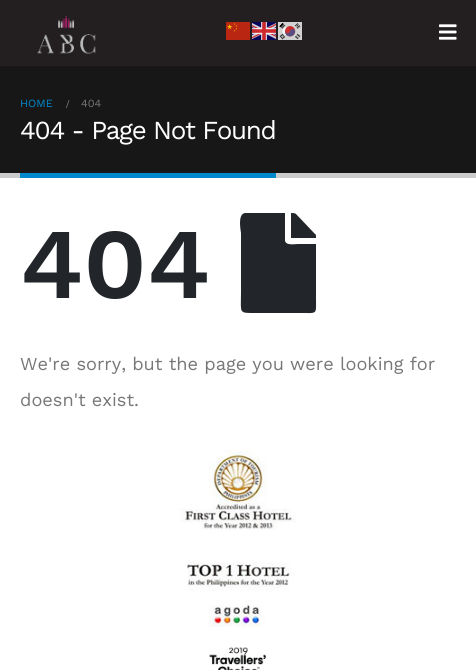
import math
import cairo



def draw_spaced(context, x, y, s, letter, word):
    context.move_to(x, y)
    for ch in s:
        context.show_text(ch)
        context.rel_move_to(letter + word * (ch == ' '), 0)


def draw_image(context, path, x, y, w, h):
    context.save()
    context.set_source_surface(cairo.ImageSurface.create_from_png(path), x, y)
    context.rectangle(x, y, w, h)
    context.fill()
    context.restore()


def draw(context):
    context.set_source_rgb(1, 1, 1)
    context.paint()
    context.set_source_rgb(35 / 255, 31 / 255, 32 / 255)
    context.rectangle(0, 0, 476, 66)
    context.fill()
    draw_image(context, "images/1.png", 37, 16, 59, 38)
    draw_image(context, "images/2.png", 226, 22, 24, 18)
    draw_image(context, "images/3.png", 252, 22, 24, 18)
    draw_image(context, "images/4.png", 278, 22, 24, 18)
    draw_image(context, "images/5.png", 439, 24, 18, 16)
    context.set_source_rgb(23 / 255, 23 / 255, 23 / 255)
    context.rectangle(0, 66, 476, 107)
    context.fill()
    context.set_source_rgb(204 / 255, 204 / 255, 204 / 255)
    context.rectangle(0, 173, 476, 5)
    context.fill()
    context.set_source_rgb(0, 136 / 255, 204 / 255)
    context.rectangle(20, 173, 256, 5)
    context.fill()
    context.set_source_rgb(34 / 255, 37 / 255, 41 / 255)
    context.new_path()
    context.move_to(285, 240)
    context.line_to(285, 213)
    context.line_to(245, 213)
    context.curve_to(237, 214, 241, 232, 241, 233)
    context.line_to(241, 293)
    context.curve_to(241, 314, 238, 313, 257, 313)
    context.line_to(300, 313)
    context.curve_to(318, 313, 316, 315, 316, 298)
    context.line_to(316, 244)
    context.line_to(298, 244)
    context.curve_to(295, 244, 285, 246, 285, 240)
    context.close_path()
    context.move_to(316, 237)
    context.line_to(316, 238)
    context.line_to(291, 238)
    context.line_to(291, 213)
    context.line_to(292, 213)
    context.curve_to(293, 213, 295, 213, 296, 214)
    context.line_to(315, 234)
    context.curve_to(316, 234, 316, 236, 316, 237)
    context.close_path()
    context.fill()
    draw_image(context, "images/6.png", 180, 450, 116, 80)
    draw_image(context, "images/7.png", 187, 562, 108, 65)
    draw_image(context, "images/8.png", 209, 647, 57, 23)
    context.select_font_face("Work Sans")
    context.set_font_size(11)
    context.set_source_rgb(0, 136 / 255, 204 / 255)
    context.move_to(20, 107)
    context.show_text("HOME")
    context.select_font_face("Liberation Serif", cairo.FontSlant.NORMAL, cairo.FontWeight.BOLD)
    context.set_font_size(12)
    context.set_source_rgb(119 / 255, 119 / 255, 119 / 255)
    context.move_to(66, 108)
    context.show_text("/")
    context.select_font_face("Work Sans")
    context.set_font_size(11)
    context.move_to(81, 107)
    context.show_text("404")
    context.set_font_size(26)
    context.set_source_rgb(1, 1, 1)
    draw_spaced(context, 20, 139, "404 - Page Not Found", -1.3, 0)
    context.select_font_face("Work Sans SemiBold")
    context.set_font_size(100)
    context.set_source_rgb(34 / 255, 37 / 255, 41 / 255)
    context.move_to(20, 298)
    context.show_text("404")
    context.select_font_face("Work Sans")
    context.set_font_size(18.2)
    context.set_source_rgb(119 / 255, 119 / 255, 119 / 255)
    context.move_to(20, 370)
    context.show_text("We're sorry, but the page you were looking for")
    context.move_to(20, 406)
    context.show_text("doesn't exist.")


surface = cairo.ImageSurface(cairo.Format.RGB24, 476, 670)
context = cairo.Context(surface)
options = cairo.FontOptions()
options.set_hint_metrics(cairo.HintMetrics.OFF)
options.set_hint_style(cairo.HintStyle.NONE)
context.set_font_options(options)
context.set_miter_limit(4)
draw(context)
surface.write_to_png("out.png")
